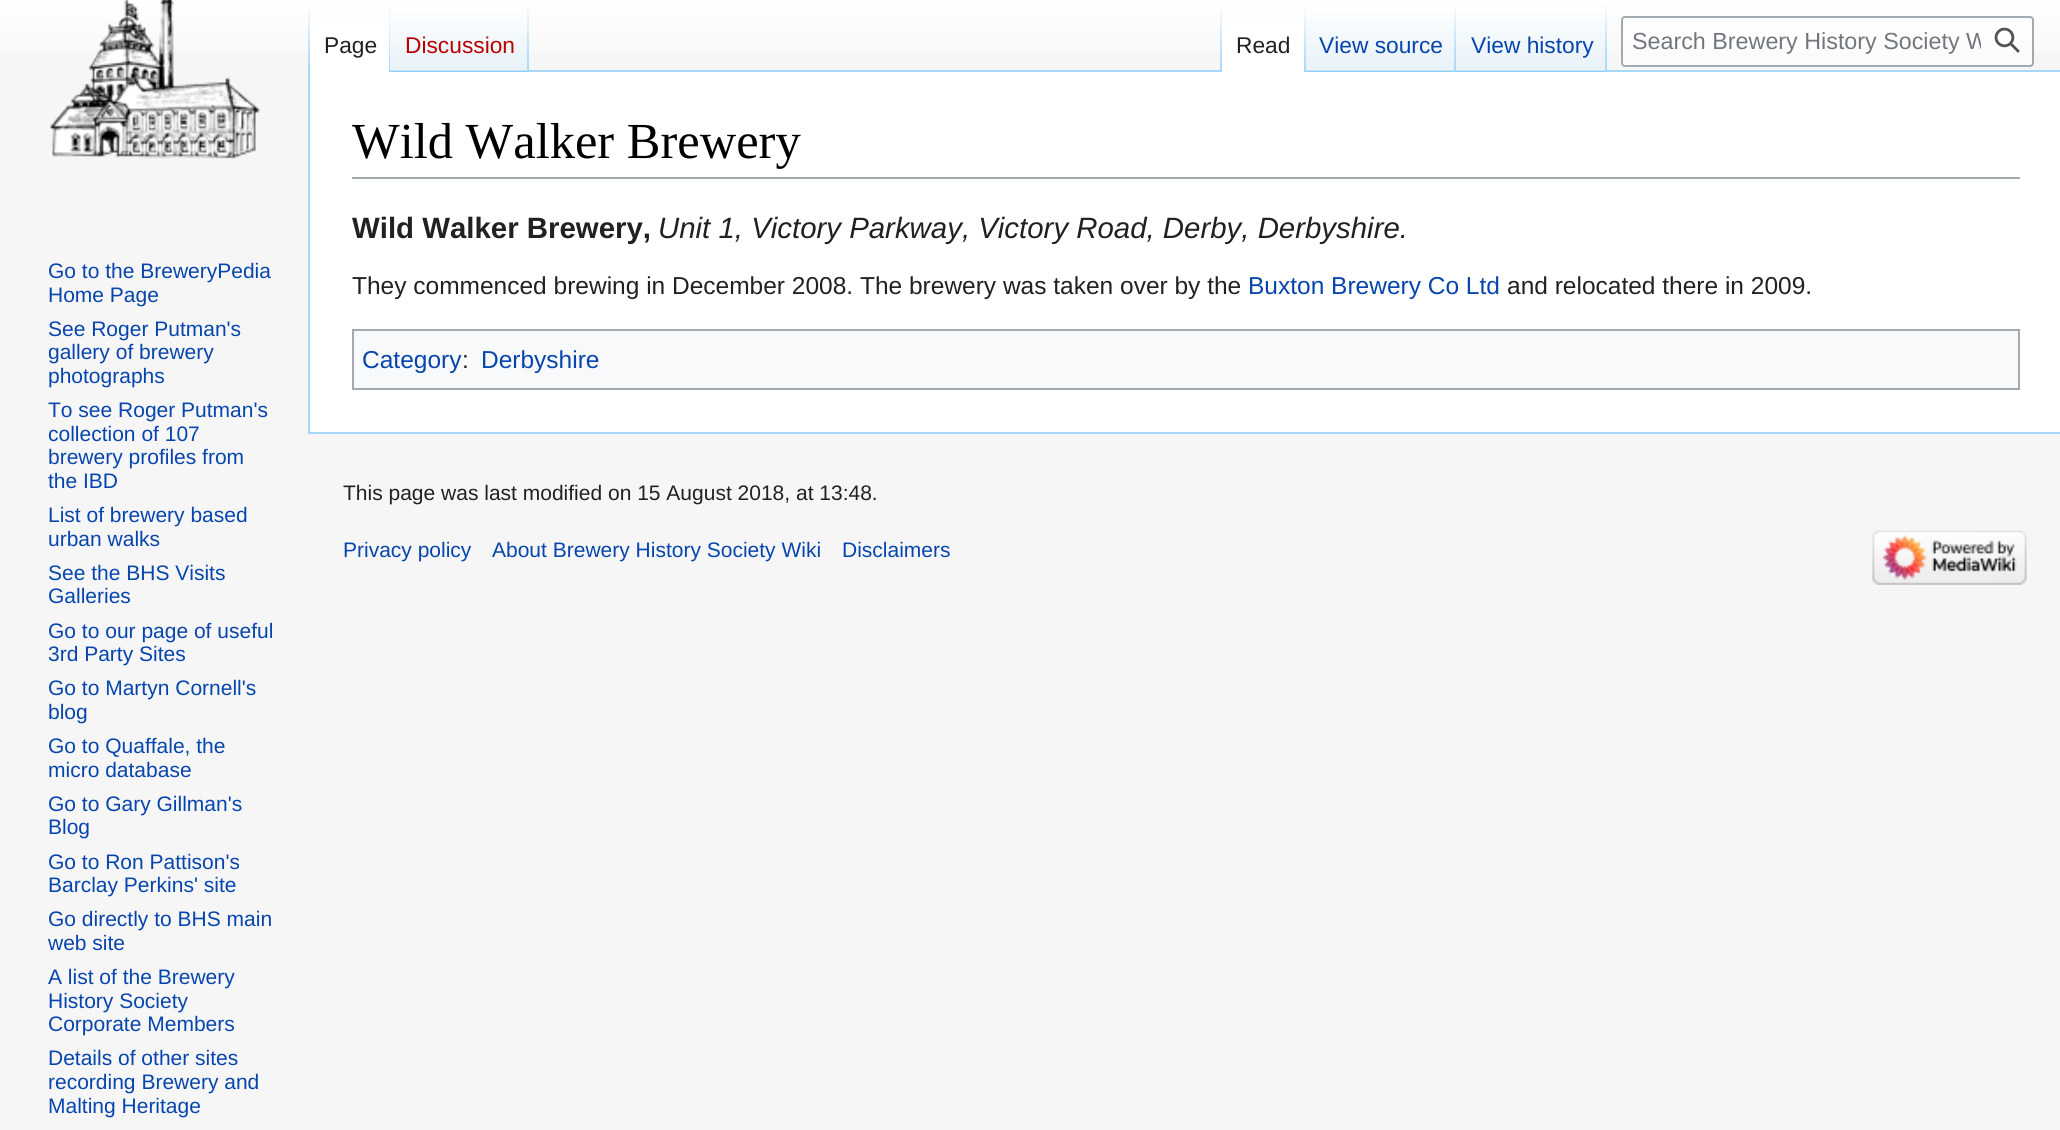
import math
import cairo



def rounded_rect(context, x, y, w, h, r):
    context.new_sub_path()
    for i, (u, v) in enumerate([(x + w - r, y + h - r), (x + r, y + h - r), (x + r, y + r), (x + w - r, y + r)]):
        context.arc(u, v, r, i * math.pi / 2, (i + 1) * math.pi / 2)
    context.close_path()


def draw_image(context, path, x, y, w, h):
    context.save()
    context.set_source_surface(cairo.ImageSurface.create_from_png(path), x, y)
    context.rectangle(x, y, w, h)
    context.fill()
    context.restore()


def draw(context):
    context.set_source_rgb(246 / 255, 246 / 255, 246 / 255)
    context.paint()
    gradient = cairo.LinearGradient(1031, -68, 1031, 72)
    gradient.add_color_stop_rgba(0.5, 1, 1, 1, 1)
    gradient.add_color_stop_rgba(1, 246 / 255, 246 / 255, 246 / 255, 1)
    context.set_source(gradient)
    context.rectangle(0, 0, 2060, 53)
    context.fill()
    context.set_source_rgb(167 / 255, 215 / 255, 249 / 255)
    context.rectangle(308, 432, 1752, 2)
    context.fill()
    context.rectangle(308, 70, 2, 364)
    context.fill()
    gradient = cairo.LinearGradient(309, 1.8, 309, 72)
    gradient.add_color_stop_rgba(0, 167 / 255, 215 / 255, 249 / 255, 0)
    gradient.add_color_stop_rgba(1, 167 / 255, 215 / 255, 249 / 255, 1)
    context.set_source(gradient)
    context.rectangle(308, 2, 2, 70)
    context.fill()
    context.set_source_rgb(1, 1, 1)
    context.rectangle(310, 21, 79, 51)
    context.fill()
    gradient = cairo.LinearGradient(389, 1.8, 389, 72)
    gradient.add_color_stop_rgba(0, 1, 1, 1, 1)
    gradient.add_color_stop_rgba(1, 167 / 255, 215 / 255, 249 / 255, 1)
    context.set_source(gradient)
    context.rectangle(389, 2, 1, 70)
    context.fill()
    gradient = cairo.LinearGradient(459, 72, 459, 1.8)
    gradient.add_color_stop_rgba(0, 119 / 255, 193 / 255, 246 / 255, 1)
    gradient.add_color_stop_rgba(0.03, 232 / 255, 242 / 255, 248 / 255, 1)
    gradient.add_color_stop_rgba(1, 1, 1, 1, 1)
    context.set_source(gradient)
    context.rectangle(390, 12, 139, 60)
    context.fill()
    gradient = cairo.LinearGradient(528, 1.8, 528, 72)
    gradient.add_color_stop_rgba(0, 167 / 255, 215 / 255, 249 / 255, 0)
    gradient.add_color_stop_rgba(1, 167 / 255, 215 / 255, 249 / 255, 1)
    context.set_source(gradient)
    context.rectangle(527, 2, 2, 70)
    context.fill()
    context.set_source_rgb(167 / 255, 215 / 255, 249 / 255)
    context.rectangle(529, 70, 1531, 2)
    context.fill()
    gradient = cairo.LinearGradient(1221, 1.8, 1221, 72)
    gradient.add_color_stop_rgba(0, 167 / 255, 215 / 255, 249 / 255, 0)
    gradient.add_color_stop_rgba(1, 167 / 255, 215 / 255, 249 / 255, 1)
    context.set_source(gradient)
    context.rectangle(1220, 2, 2, 70)
    context.fill()
    context.set_source_rgb(1, 1, 1)
    context.rectangle(1222, 21, 82, 51)
    context.fill()
    gradient = cairo.LinearGradient(1305, 1.8, 1305, 72)
    gradient.add_color_stop_rgba(0, 1, 1, 1, 1)
    gradient.add_color_stop_rgba(1, 167 / 255, 215 / 255, 249 / 255, 1)
    context.set_source(gradient)
    context.rectangle(1304, 2, 2, 70)
    context.fill()
    gradient = cairo.LinearGradient(1381, 72, 1381, 1.8)
    gradient.add_color_stop_rgba(0, 119 / 255, 193 / 255, 246 / 255, 1)
    gradient.add_color_stop_rgba(0.03, 232 / 255, 242 / 255, 248 / 255, 1)
    gradient.add_color_stop_rgba(1, 1, 1, 1, 1)
    context.set_source(gradient)
    context.rectangle(1306, 12, 150, 60)
    context.fill()
    gradient = cairo.LinearGradient(1455, 1.8, 1455, 72)
    gradient.add_color_stop_rgba(0, 167 / 255, 215 / 255, 249 / 255, 0)
    gradient.add_color_stop_rgba(1, 167 / 255, 215 / 255, 249 / 255, 1)
    context.set_source(gradient)
    context.rectangle(1454, 2, 2, 70)
    context.fill()
    gradient = cairo.LinearGradient(1531, 72, 1531, 1.8)
    gradient.add_color_stop_rgba(0, 119 / 255, 193 / 255, 246 / 255, 1)
    gradient.add_color_stop_rgba(0.03, 232 / 255, 242 / 255, 248 / 255, 1)
    gradient.add_color_stop_rgba(1, 1, 1, 1, 1)
    context.set_source(gradient)
    context.rectangle(1456, 12, 151, 60)
    context.fill()
    gradient = cairo.LinearGradient(1606, 1.8, 1606, 72)
    gradient.add_color_stop_rgba(0, 167 / 255, 215 / 255, 249 / 255, 0)
    gradient.add_color_stop_rgba(1, 167 / 255, 215 / 255, 249 / 255, 1)
    context.set_source(gradient)
    context.rectangle(1605, 2, 2, 70)
    context.fill()
    context.set_source_rgba(1, 1, 1, 0.5)
    rounded_rect(context, 1622, 17, 411, 49, 3)
    context.fill_preserve()
    context.set_source_rgb(162 / 255, 169 / 255, 177 / 255)
    context.stroke()
    draw_image(context, "images/1.png", 1994, 27, 26, 26)
    draw_image(context, "images/2.png", 50, 0, 210, 159)
    context.set_source_rgb(1, 1, 1)
    context.rectangle(310, 72, 1750, 360)
    context.fill()
    context.set_source_rgb(162 / 255, 169 / 255, 177 / 255)
    context.rectangle(352, 177, 1668, 2)
    context.fill()
    context.set_source_rgb(248 / 255, 249 / 255, 250 / 255)
    context.rectangle(353, 330, 1666, 59)
    context.fill_preserve()
    context.set_source_rgb(162 / 255, 169 / 255, 177 / 255)
    context.stroke()
    draw_image(context, "images/3.png", 1872, 530, 155, 55)
    context.select_font_face("Liberation Sans")
    context.set_font_size(22.75)
    context.set_source_rgb(32 / 255, 33 / 255, 34 / 255)
    context.move_to(324, 53)
    context.show_text("Page")
    context.set_source_rgb(186 / 255, 0, 0)
    context.move_to(405, 53)
    context.show_text("Discussion")
    context.set_source_rgb(32 / 255, 33 / 255, 34 / 255)
    context.move_to(1236, 53)
    context.show_text("Read")
    context.set_source_rgb(6 / 255, 69 / 255, 173 / 255)
    context.move_to(1319, 53)
    context.show_text("View source")
    context.move_to(1471, 53)
    context.show_text("View history")
    context.save()
    context.rectangle(1633, 28, 348, 26)
    context.clip()
    context.set_font_size(23.3)
    context.set_source_rgb(114 / 255, 119 / 255, 125 / 255)
    context.move_to(1632, 49)
    context.show_text("Search Brewery History Society W")
    context.restore()
    context.set_font_size(21)
    context.move_to(48, 278)
    context.show_text("Go to the BreweryPedia")
    context.move_to(48, 302)
    context.show_text("Home Page")
    context.move_to(48, 336)
    context.show_text("See Roger Putman's")
    context.move_to(48, 359)
    context.show_text("gallery of brewery")
    context.move_to(48, 383)
    context.show_text("photographs")
    context.move_to(48, 417)
    context.show_text("To see Roger Putman's")
    context.move_to(48, 441)
    context.show_text("collection of 107")
    context.move_to(48, 464)
    context.show_text("brewery profiles from")
    context.move_to(48, 488)
    context.show_text("the IBD")
    context.move_to(48, 522)
    context.show_text("List of brewery based")
    context.move_to(48, 546)
    context.show_text("urban walks")
    context.move_to(48, 580)
    context.show_text("See the BHS Visits")
    context.move_to(48, 603)
    context.show_text("Galleries")
    context.move_to(48, 638)
    context.show_text("Go to our page of useful")
    context.move_to(48, 661)
    context.show_text("3rd Party Sites")
    context.move_to(48, 695)
    context.show_text("Go to Martyn Cornell's")
    context.move_to(48, 719)
    context.show_text("blog")
    context.move_to(48, 753)
    context.show_text("Go to Quaffale, the")
    context.move_to(48, 777)
    context.show_text("micro database")
    context.move_to(48, 811)
    context.show_text("Go to Gary Gillman's")
    context.move_to(48, 834)
    context.show_text("Blog")
    context.move_to(48, 869)
    context.show_text("Go to Ron Pattison's")
    context.move_to(48, 892)
    context.show_text("Barclay Perkins' site")
    context.move_to(48, 926)
    context.show_text("Go directly to BHS main")
    context.move_to(48, 950)
    context.show_text("web site")
    context.move_to(48, 984)
    context.show_text("A list of the Brewery")
    context.move_to(48, 1008)
    context.show_text("History Society")
    context.move_to(48, 1031)
    context.show_text("Corporate Members")
    context.move_to(48, 1065)
    context.show_text("Details of other sites")
    context.move_to(48, 1089)
    context.show_text("recording Brewery and")
    context.move_to(48, 1113)
    context.show_text("Malting Heritage")
    context.select_font_face("Liberation Serif")
    context.set_font_size(50.5)
    context.set_source_rgb(0, 0, 0)
    context.move_to(352, 158)
    context.show_text("Wild Walker Brewery")
    context.select_font_face("Liberation Sans", cairo.FontSlant.NORMAL, cairo.FontWeight.BOLD)
    context.set_font_size(29.4)
    context.set_source_rgb(32 / 255, 33 / 255, 34 / 255)
    context.move_to(352, 238)
    context.show_text("Wild Walker Brewery,")
    context.select_font_face("Liberation Sans", cairo.FontSlant.ITALIC)
    context.move_to(658, 238)
    context.show_text("Unit 1, Victory Parkway, Victory Road, Derby, Derbyshire.")
    context.select_font_face("Liberation Sans")
    context.set_font_size(24.5)
    context.move_to(352, 294)
    context.show_text("They commenced brewing in December 2008. The brewery was taken over by the")
    context.set_source_rgb(6 / 255, 69 / 255, 173 / 255)
    context.move_to(1248, 294)
    context.show_text("Buxton Brewery Co Ltd")
    context.set_source_rgb(32 / 255, 33 / 255, 34 / 255)
    context.move_to(1507, 294)
    context.show_text("and relocated there in 2009.")
    context.set_source_rgb(6 / 255, 69 / 255, 173 / 255)
    context.move_to(362, 368)
    context.show_text("Category")
    context.set_source_rgb(32 / 255, 33 / 255, 34 / 255)
    context.move_to(462, 368)
    context.show_text(":")
    context.set_source_rgb(6 / 255, 69 / 255, 173 / 255)
    context.move_to(481, 368)
    context.show_text("Derbyshire")
    context.set_font_size(21)
    context.set_source_rgb(32 / 255, 33 / 255, 34 / 255)
    context.move_to(343, 500)
    context.show_text("This page was last modified on 15 August 2018, at 13:48.")
    context.set_source_rgb(6 / 255, 69 / 255, 173 / 255)
    context.move_to(343, 557)
    context.show_text("Privacy policy")
    context.move_to(492, 557)
    context.show_text("About Brewery History Society Wiki")
    context.move_to(842, 557)
    context.show_text("Disclaimers")


surface = cairo.ImageSurface(cairo.Format.RGB24, 2060, 1130)
context = cairo.Context(surface)
options = cairo.FontOptions()
options.set_hint_metrics(cairo.HintMetrics.OFF)
options.set_hint_style(cairo.HintStyle.NONE)
context.set_font_options(options)
context.set_miter_limit(4)
draw(context)
surface.write_to_png("out.png")
